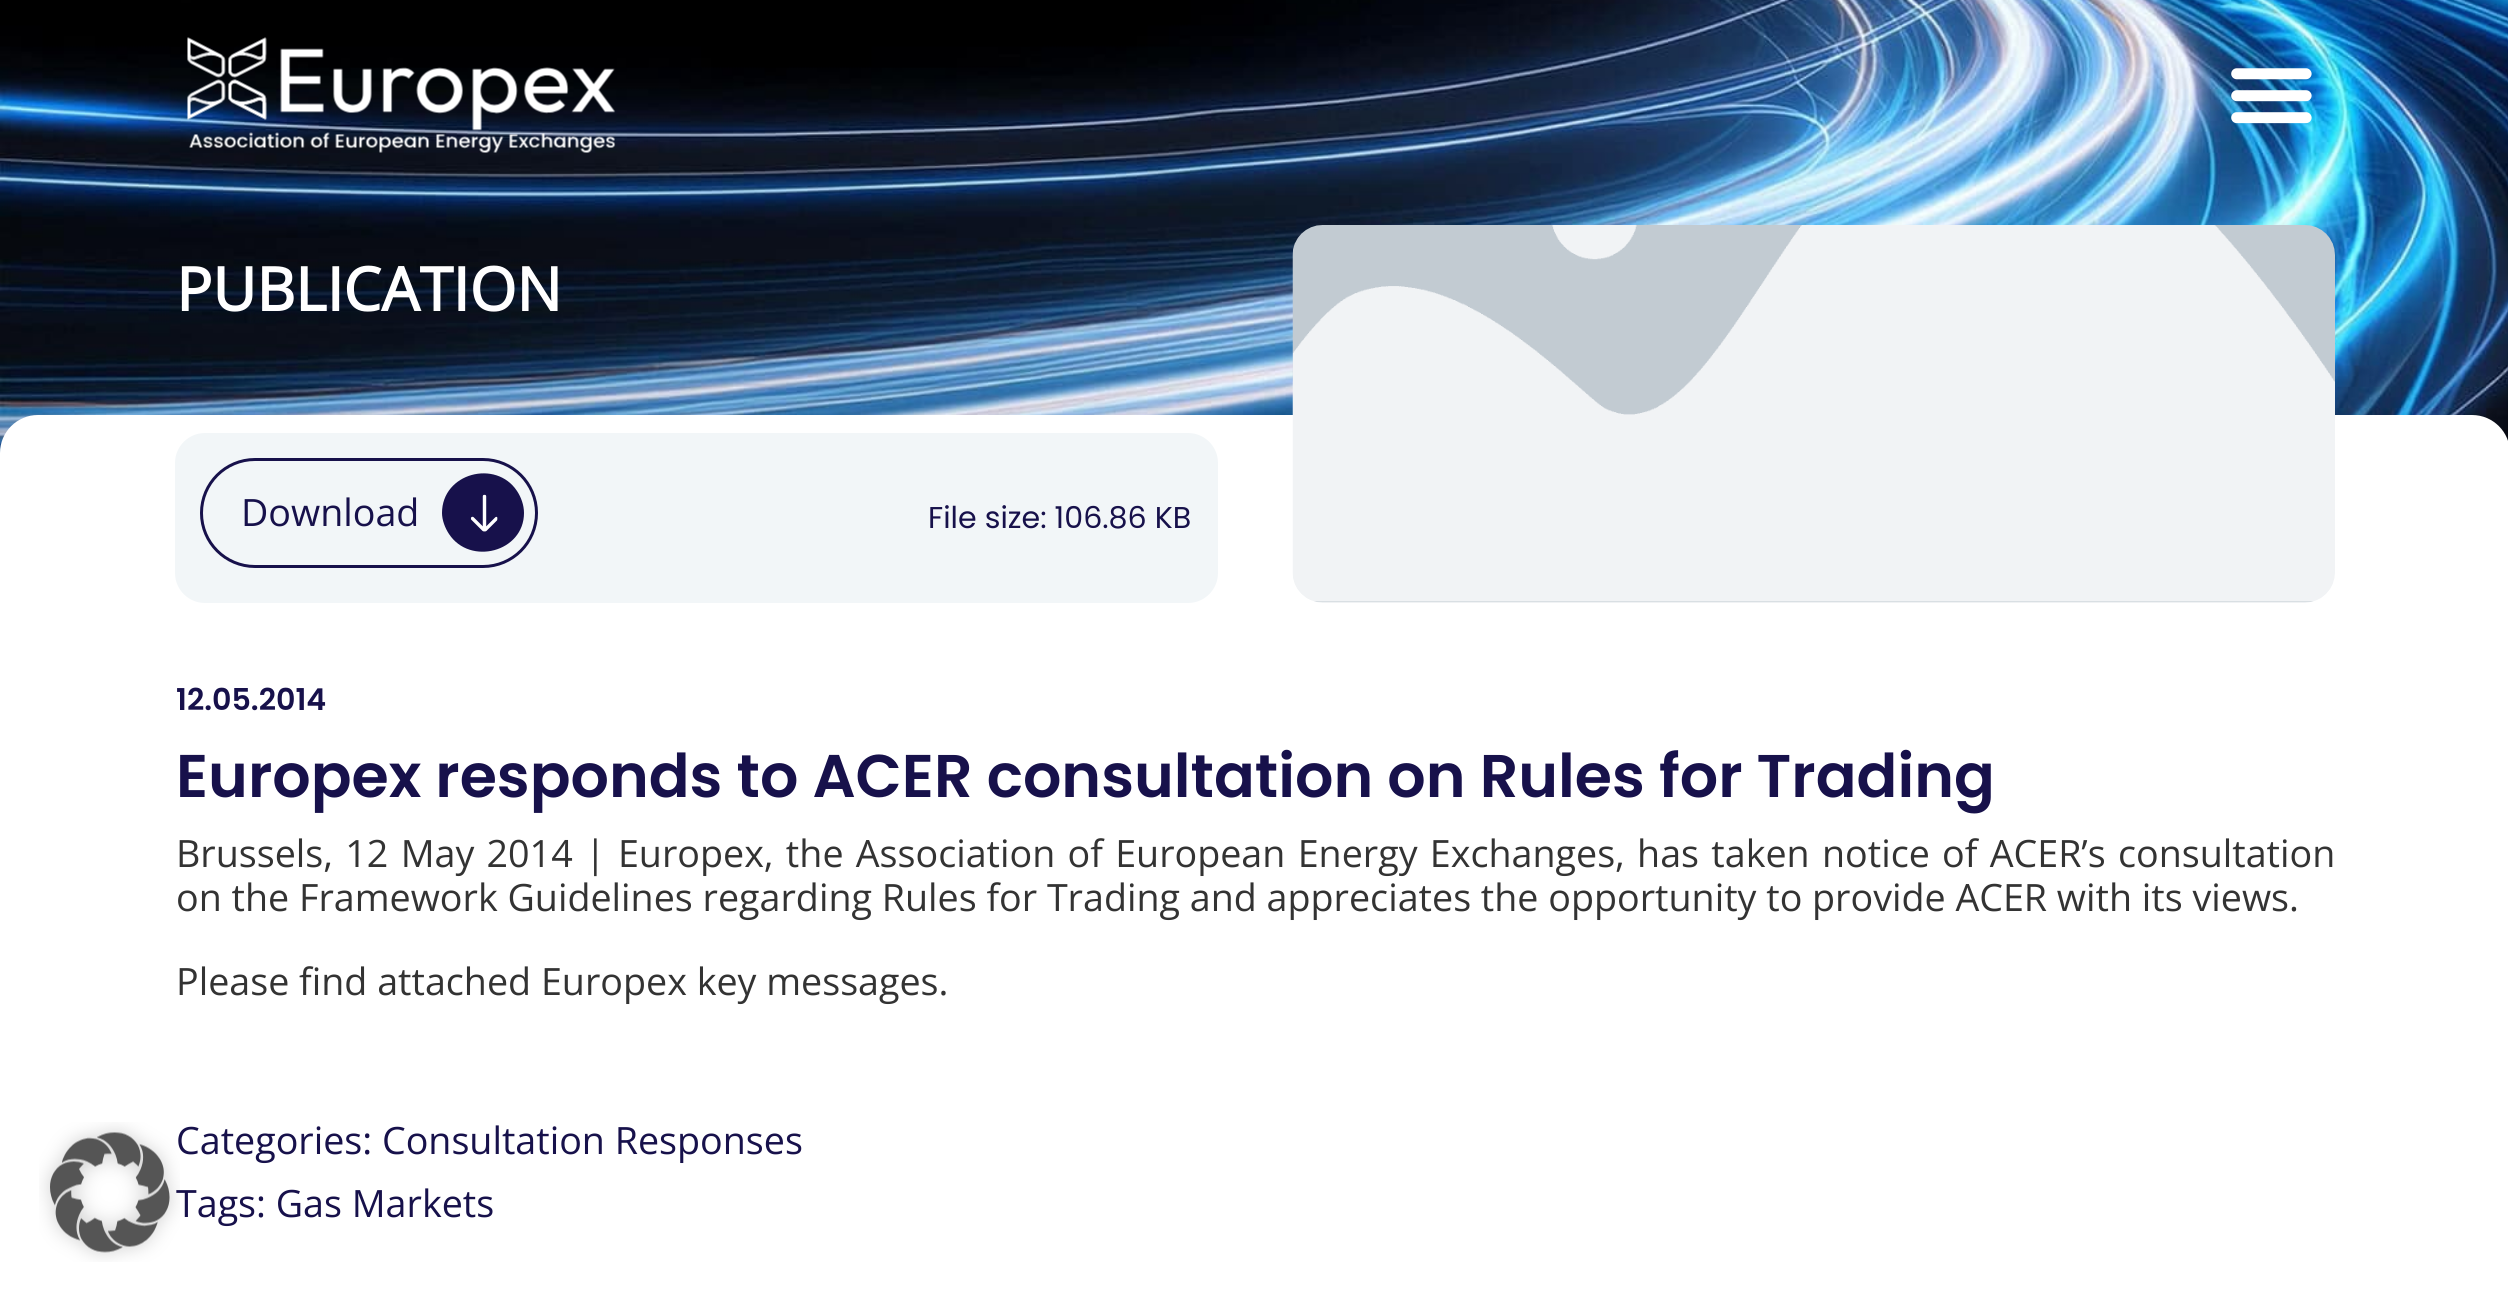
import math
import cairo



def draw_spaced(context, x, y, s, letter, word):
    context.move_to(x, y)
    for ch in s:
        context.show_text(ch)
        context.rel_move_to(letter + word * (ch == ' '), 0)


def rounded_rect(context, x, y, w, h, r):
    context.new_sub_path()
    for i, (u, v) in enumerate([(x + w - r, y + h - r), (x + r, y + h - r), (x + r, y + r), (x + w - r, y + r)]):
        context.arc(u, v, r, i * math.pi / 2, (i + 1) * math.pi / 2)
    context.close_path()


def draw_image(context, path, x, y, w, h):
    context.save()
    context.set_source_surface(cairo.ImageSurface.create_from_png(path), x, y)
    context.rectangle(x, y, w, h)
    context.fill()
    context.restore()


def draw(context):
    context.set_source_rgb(1, 1, 1)
    context.paint()
    draw_image(context, "images/4.png", 0, 0, 2508, 453)
    draw_image(context, "images/1.png", 187, 37, 429, 116)
    draw_image(context, "images/2.png", 2231, 68, 81, 56)
    context.set_source_rgb(1, 1, 1)
    context.new_path()
    context.move_to(38, 415)
    context.line_to(2472, 415)
    context.curve_to(2493, 415, 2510, 432, 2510, 453)
    context.line_to(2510, 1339)
    context.line_to(0, 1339)
    context.line_to(0, 453)
    context.curve_to(0, 432, 17, 415, 38, 415)
    context.close_path()
    context.fill()
    context.set_source_rgb(242 / 255, 246 / 255, 248 / 255)
    rounded_rect(context, 175, 433, 1043, 170, 30)
    context.fill()
    rounded_rect(context, 201.5, 459.5, 335, 107, 53.5)
    context.set_source_rgb(23 / 255, 17 / 255, 75 / 255)
    context.set_line_width(3)
    context.stroke()
    context.new_path()
    context.move_to(524, 513)
    context.curve_to(524, 552, 470, 566, 449, 534)
    context.curve_to(445, 528, 442, 520, 442, 513)
    context.curve_to(442, 473, 496, 459, 517, 491)
    context.curve_to(521, 497, 524, 505, 524, 513)
    context.close_path()
    context.fill()
    draw_image(context, "images/5.png", 470, 494, 28, 38)
    draw_image(context, "images/6.png", 1292, 225, 1043, 378)
    context.select_font_face("Open Sans", cairo.FontSlant.NORMAL, cairo.FontWeight.BOLD)
    context.set_font_size(60.25)
    context.set_source_rgb(1, 1, 1)
    context.move_to(176, 311)
    context.show_text("PUBLICATION")
    context.select_font_face("Open Sans")
    context.set_font_size(37.65)
    context.set_source_rgb(23 / 255, 17 / 255, 75 / 255)
    context.move_to(241, 526)
    context.show_text("Download")
    context.select_font_face("Poppins")
    context.set_font_size(30.1)
    context.move_to(928, 528)
    context.show_text("File size: 106.86 KB")
    context.select_font_face("Poppins SemiBold")
    context.move_to(176, 710)
    context.show_text("12.05.2014")
    context.set_font_size(60.25)
    draw_spaced(context, 176, 797, "Europex responds to ACER consultation on Rules for Trading", 0, -0.25)
    context.select_font_face("Open Sans")
    context.set_font_size(37.65)
    context.set_source_rgb(51 / 255, 51 / 255, 51 / 255)
    draw_spaced(context, 176, 867, "Brussels, 12 May 2014 | Europex, the Association of European Energy Exchanges, has taken notice of ACER’s consultation", 0, 2.5)
    context.move_to(176, 911)
    context.show_text("on the Framework Guidelines regarding Rules for Trading and appreciates the opportunity to provide ACER with its views.")
    context.move_to(176, 995)
    context.show_text("Please find attached Europex key messages.")
    context.set_source_rgb(23 / 255, 17 / 255, 75 / 255)
    context.move_to(176, 1154)
    context.show_text("Categories: Consultation Responses")
    context.move_to(176, 1217)
    context.show_text("Tags: Gas Markets")
    draw_image(context, "images/3.png", 39, 1122, 141, 140)


surface = cairo.ImageSurface(cairo.Format.RGB24, 2508, 1301)
context = cairo.Context(surface)
options = cairo.FontOptions()
options.set_hint_metrics(cairo.HintMetrics.OFF)
options.set_hint_style(cairo.HintStyle.NONE)
context.set_font_options(options)
context.set_miter_limit(4)
draw(context)
surface.write_to_png("out.png")
